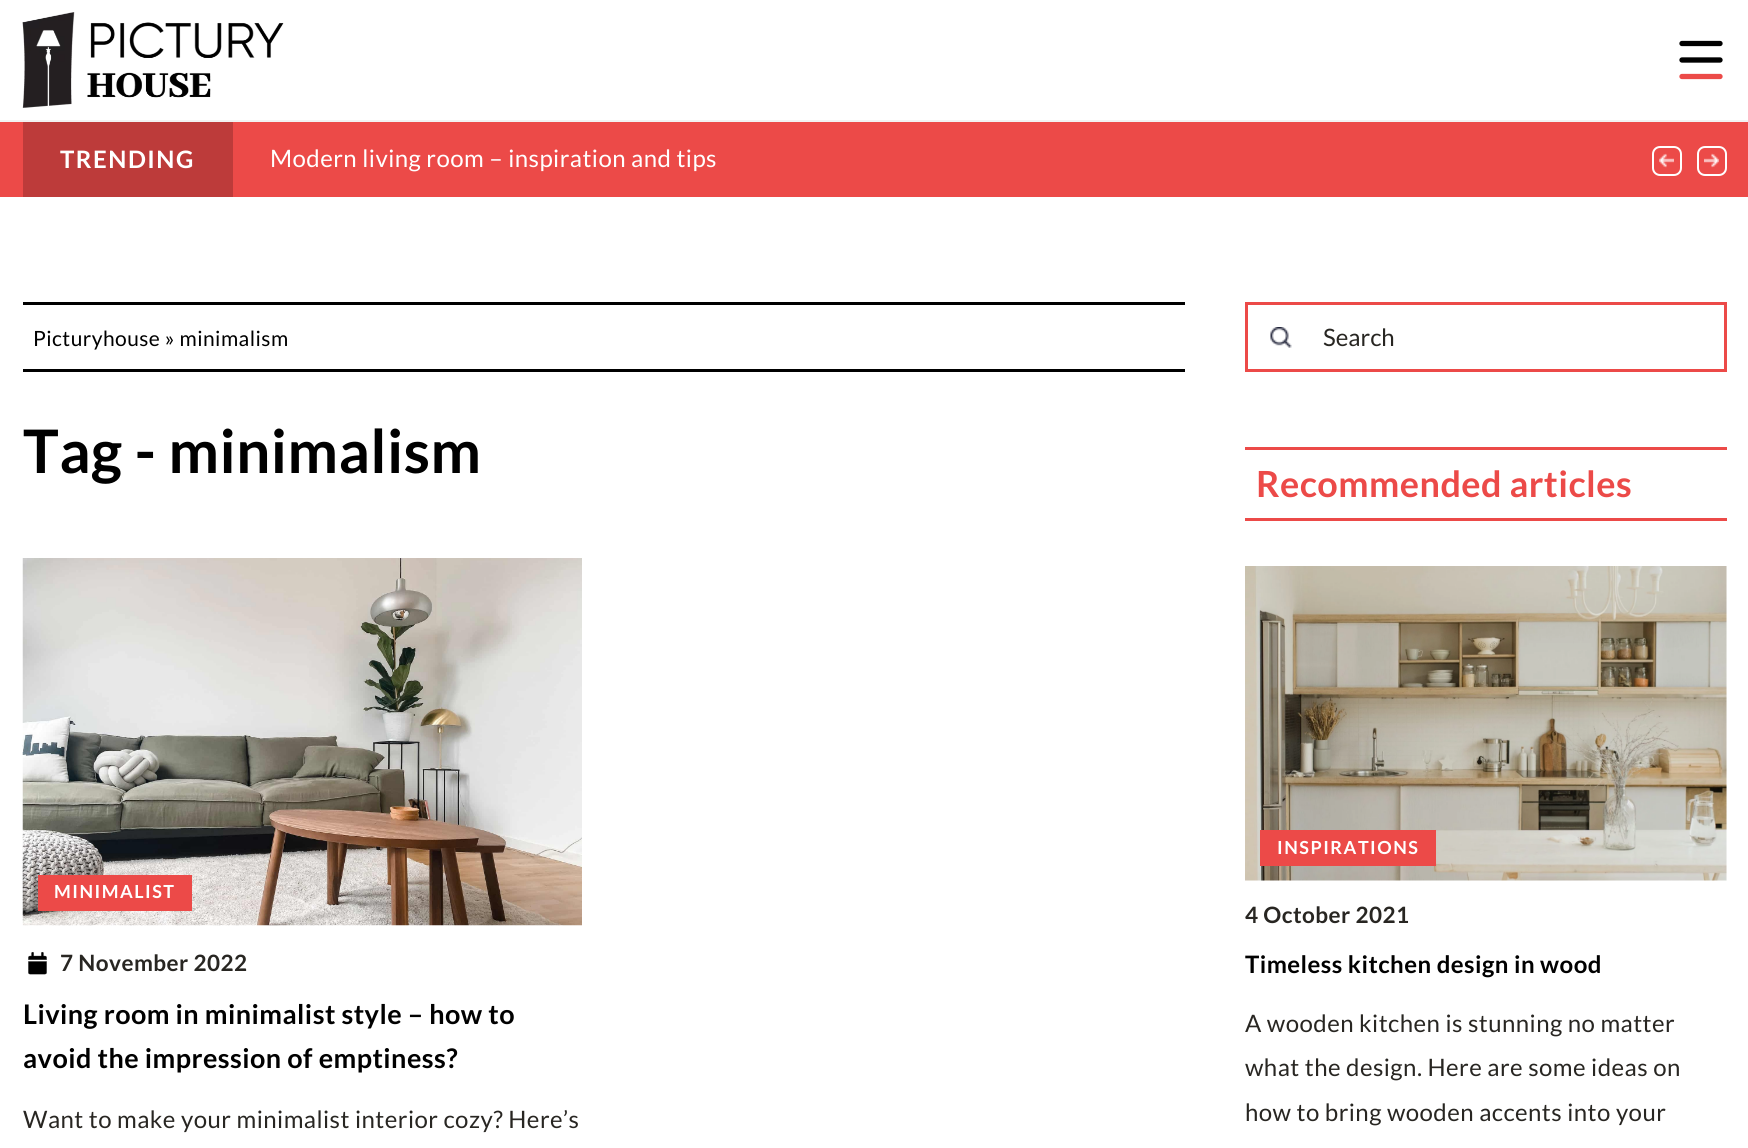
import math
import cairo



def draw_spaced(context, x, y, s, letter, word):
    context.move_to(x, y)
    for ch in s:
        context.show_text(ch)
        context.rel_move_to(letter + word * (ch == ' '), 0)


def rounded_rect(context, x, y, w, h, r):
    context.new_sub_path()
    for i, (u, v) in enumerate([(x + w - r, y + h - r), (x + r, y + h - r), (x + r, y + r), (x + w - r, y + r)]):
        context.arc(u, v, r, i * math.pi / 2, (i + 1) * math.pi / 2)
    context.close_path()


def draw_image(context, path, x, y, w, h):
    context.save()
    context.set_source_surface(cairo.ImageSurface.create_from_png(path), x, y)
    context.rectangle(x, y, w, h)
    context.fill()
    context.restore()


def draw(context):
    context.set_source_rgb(1, 1, 1)
    context.paint()
    context.set_source_rgb(242 / 255, 242 / 255, 242 / 255)
    context.rectangle(0, 120, 1748, 2)
    context.fill()
    draw_image(context, "images/1.png", 22, 12, 262, 96)
    context.new_path()
    context.move_to(1682, 43.5)
    context.line_to(1720, 43.5)
    context.move_to(1682, 60)
    context.line_to(1720, 60)
    context.set_source_rgb(0, 0, 0)
    context.set_line_width(5.3)
    context.set_line_cap(cairo.LineCap.ROUND)
    context.stroke()
    context.new_path()
    context.move_to(1720, 76.5)
    context.line_to(1682, 76.5)
    context.set_source_rgb(236 / 255, 74 / 255, 72 / 255)
    context.stroke()
    context.rectangle(0, 122, 1748, 75)
    context.fill()
    context.set_source_rgb(189 / 255, 59 / 255, 58 / 255)
    context.rectangle(23, 122, 210, 75)
    context.fill()
    rounded_rect(context, 1653, 147, 28, 28, 7)
    context.set_source_rgb(1, 1, 1)
    context.set_line_width(2)
    context.set_line_cap(cairo.LineCap.BUTT)
    context.stroke()
    draw_image(context, "images/2.png", 1659, 153, 15, 15)
    rounded_rect(context, 1698, 147, 28, 28, 7)
    context.stroke()
    draw_image(context, "images/3.png", 1704, 153, 15, 15)
    context.set_source_rgb(0, 0, 0)
    context.rectangle(23, 302, 1162, 3)
    context.fill()
    context.rectangle(23, 369, 1162, 3)
    context.fill()
    draw_image(context, "images/4.png", 22, 558, 560, 368)
    context.set_source_rgb(236 / 255, 74 / 255, 72 / 255)
    context.rectangle(38, 875, 154, 36)
    context.fill()
    draw_image(context, "images/5.png", 28, 952, 19, 23)
    context.rectangle(1246.5, 303.5, 479, 67)
    context.set_line_width(3)
    context.stroke()
    draw_image(context, "images/6.png", 1270, 327, 22, 21)
    context.rectangle(1245, 447, 482, 3)
    context.fill()
    context.rectangle(1245, 518, 482, 3)
    context.fill()
    draw_image(context, "images/7.png", 1245, 566, 482, 315)
    context.rectangle(1260, 830, 176, 36)
    context.fill()
    context.select_font_face("Lato", cairo.FontSlant.NORMAL, cairo.FontWeight.BOLD)
    context.set_font_size(24)
    context.set_source_rgb(1, 1, 1)
    draw_spaced(context, 60, 168, "TRENDING", 1.5, 0)
    context.select_font_face("Lato")
    draw_spaced(context, 270, 167, "Modern living room – inspiration and tips", 0.45, 0)
    context.set_font_size(21)
    context.set_source_rgb(0, 0, 0)
    draw_spaced(context, 33, 346, "Picturyhouse » minimalism", 0.45, 0)
    context.select_font_face("Lato", cairo.FontSlant.NORMAL, cairo.FontWeight.BOLD)
    context.set_font_size(60)
    draw_spaced(context, 23, 473, "Tag - minimalism", 0.45, 0)
    context.set_font_size(18)
    context.set_source_rgb(1, 1, 1)
    draw_spaced(context, 54, 898, "MINIMALIST", 1.5, 0)
    context.set_font_size(22.5)
    context.set_source_rgb(40 / 255, 38 / 255, 34 / 255)
    draw_spaced(context, 60, 971, "7 November 2022", 0.45, 0)
    context.set_font_size(27)
    context.set_source_rgb(0, 0, 0)
    draw_spaced(context, 23, 1024, "Living room in minimalist style – how to", 0.45, 0)
    draw_spaced(context, 23, 1068, "avoid the impression of emptiness?", 0.45, 0)
    context.select_font_face("Lato")
    context.set_font_size(24)
    context.set_source_rgb(40 / 255, 38 / 255, 34 / 255)
    draw_spaced(context, 23, 1128, "Want to make your minimalist interior cozy? Here’s", 0.45, 0)
    context.move_to(1323, 346)
    context.show_text("Search")
    context.select_font_face("Lato", cairo.FontSlant.NORMAL, cairo.FontWeight.BOLD)
    context.set_font_size(36)
    context.set_source_rgb(236 / 255, 74 / 255, 72 / 255)
    draw_spaced(context, 1256, 497, "Recommended articles", 0.45, 0)
    context.set_font_size(18)
    context.set_source_rgb(1, 1, 1)
    draw_spaced(context, 1277, 854, "INSPIRATIONS", 1.5, 0)
    context.set_font_size(22.5)
    context.set_source_rgb(40 / 255, 38 / 255, 34 / 255)
    draw_spaced(context, 1245, 923, "4 October 2021", 0.45, 0)
    context.set_font_size(24)
    context.set_source_rgb(0, 0, 0)
    draw_spaced(context, 1245, 973, "Timeless kitchen design in wood", 0.45, 0)
    context.select_font_face("Lato")
    context.set_source_rgb(40 / 255, 38 / 255, 34 / 255)
    draw_spaced(context, 1245, 1032, "A wooden kitchen is stunning no matter", 0.45, 0)
    draw_spaced(context, 1245, 1076, "what the design. Here are some ideas on", 0.45, 0)
    draw_spaced(context, 1245, 1121, "how to bring wooden accents into your", 0.45, 0)


surface = cairo.ImageSurface(cairo.Format.RGB24, 1748, 1148)
context = cairo.Context(surface)
options = cairo.FontOptions()
options.set_hint_metrics(cairo.HintMetrics.OFF)
options.set_hint_style(cairo.HintStyle.NONE)
context.set_font_options(options)
context.set_miter_limit(4)
draw(context)
surface.write_to_png("out.png")
